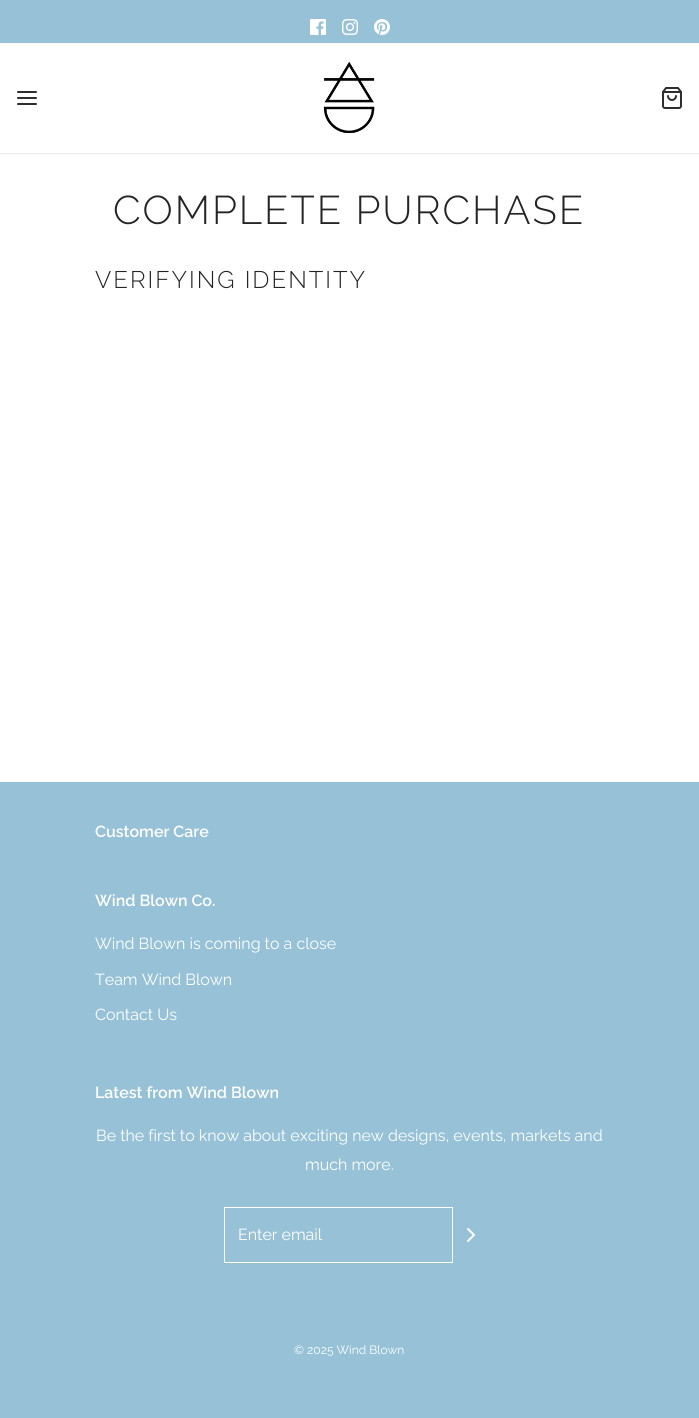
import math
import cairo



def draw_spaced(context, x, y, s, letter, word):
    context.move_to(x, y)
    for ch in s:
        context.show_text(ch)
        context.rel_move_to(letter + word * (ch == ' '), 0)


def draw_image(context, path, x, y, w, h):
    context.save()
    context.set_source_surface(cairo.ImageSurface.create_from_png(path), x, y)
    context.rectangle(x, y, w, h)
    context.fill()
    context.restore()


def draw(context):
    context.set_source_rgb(1, 1, 1)
    context.paint()
    context.set_source_rgb(150 / 255, 193 / 255, 214 / 255)
    context.rectangle(0, 0, 699, 43)
    context.fill()
    draw_image(context, "images/1.png", 310, 19, 16, 16)
    draw_image(context, "images/2.png", 342, 19, 16, 16)
    draw_image(context, "images/3.png", 374, 19, 16, 16)
    context.set_source_rgb(234 / 255, 234 / 255, 234 / 255)
    context.rectangle(0, 153, 699, 1)
    context.fill()
    context.new_path()
    context.move_to(18, 98)
    context.line_to(36, 98)
    context.move_to(18, 92)
    context.line_to(36, 92)
    context.move_to(18, 104)
    context.line_to(36, 104)
    context.set_source_rgb(46 / 255, 46 / 255, 46 / 255)
    context.set_line_cap(cairo.LineCap.ROUND)
    context.set_line_join(cairo.LineJoin.ROUND)
    context.stroke()
    draw_image(context, "images/4.png", 323, 62, 52, 72)
    draw_image(context, "images/5.png", 662, 87, 20, 22)
    context.set_source_rgb(150 / 255, 193 / 255, 214 / 255)
    context.rectangle(0, 782, 699, 636)
    context.fill()
    context.rectangle(224.5, 1207.5, 228, 55)
    context.set_source_rgb(1, 1, 1)
    context.set_line_width(1)
    context.set_line_cap(cairo.LineCap.BUTT)
    context.set_line_join(cairo.LineJoin.MITER)
    context.stroke()
    context.new_path()
    context.move_to(468, 1241)
    context.line_to(474, 1235)
    context.line_to(468, 1229)
    context.set_line_width(2)
    context.set_line_cap(cairo.LineCap.ROUND)
    context.set_line_join(cairo.LineJoin.ROUND)
    context.stroke()
    context.select_font_face("Raleway Light")
    context.set_font_size(40)
    context.set_source_rgb(36 / 255, 36 / 255, 36 / 255)
    draw_spaced(context, 113, 224, "COMPLETE PURCHASE", 2, 0)
    context.set_font_size(24)
    draw_spaced(context, 95, 288, "VERIFYING IDENTITY", 2, 0)
    context.select_font_face("Raleway SemiBold")
    context.set_font_size(16)
    context.set_source_rgb(1, 1, 1)
    context.move_to(95, 837)
    context.show_text("Customer Care")
    context.move_to(95, 906)
    context.show_text("Wind Blown Co.")
    context.select_font_face("Raleway")
    context.move_to(95, 949)
    context.show_text("Wind Blown is coming to a close")
    context.move_to(95, 985)
    context.show_text("Team Wind Blown")
    context.move_to(95, 1020)
    context.show_text("Contact Us")
    context.select_font_face("Raleway SemiBold")
    context.move_to(95, 1098)
    context.show_text("Latest from Wind Blown")
    context.select_font_face("Raleway")
    context.move_to(96, 1141)
    context.show_text("Be the first to know about exciting new designs, events, markets and")
    context.move_to(305, 1170)
    context.show_text("much more.")
    context.move_to(238, 1240)
    context.show_text("Enter email")
    context.set_font_size(12)
    context.move_to(294, 1354)
    context.show_text("© 2025 Wind Blown")


surface = cairo.ImageSurface(cairo.Format.RGB24, 699, 1418)
context = cairo.Context(surface)
options = cairo.FontOptions()
options.set_hint_metrics(cairo.HintMetrics.OFF)
options.set_hint_style(cairo.HintStyle.NONE)
context.set_font_options(options)
context.set_miter_limit(4)
draw(context)
surface.write_to_png("out.png")
